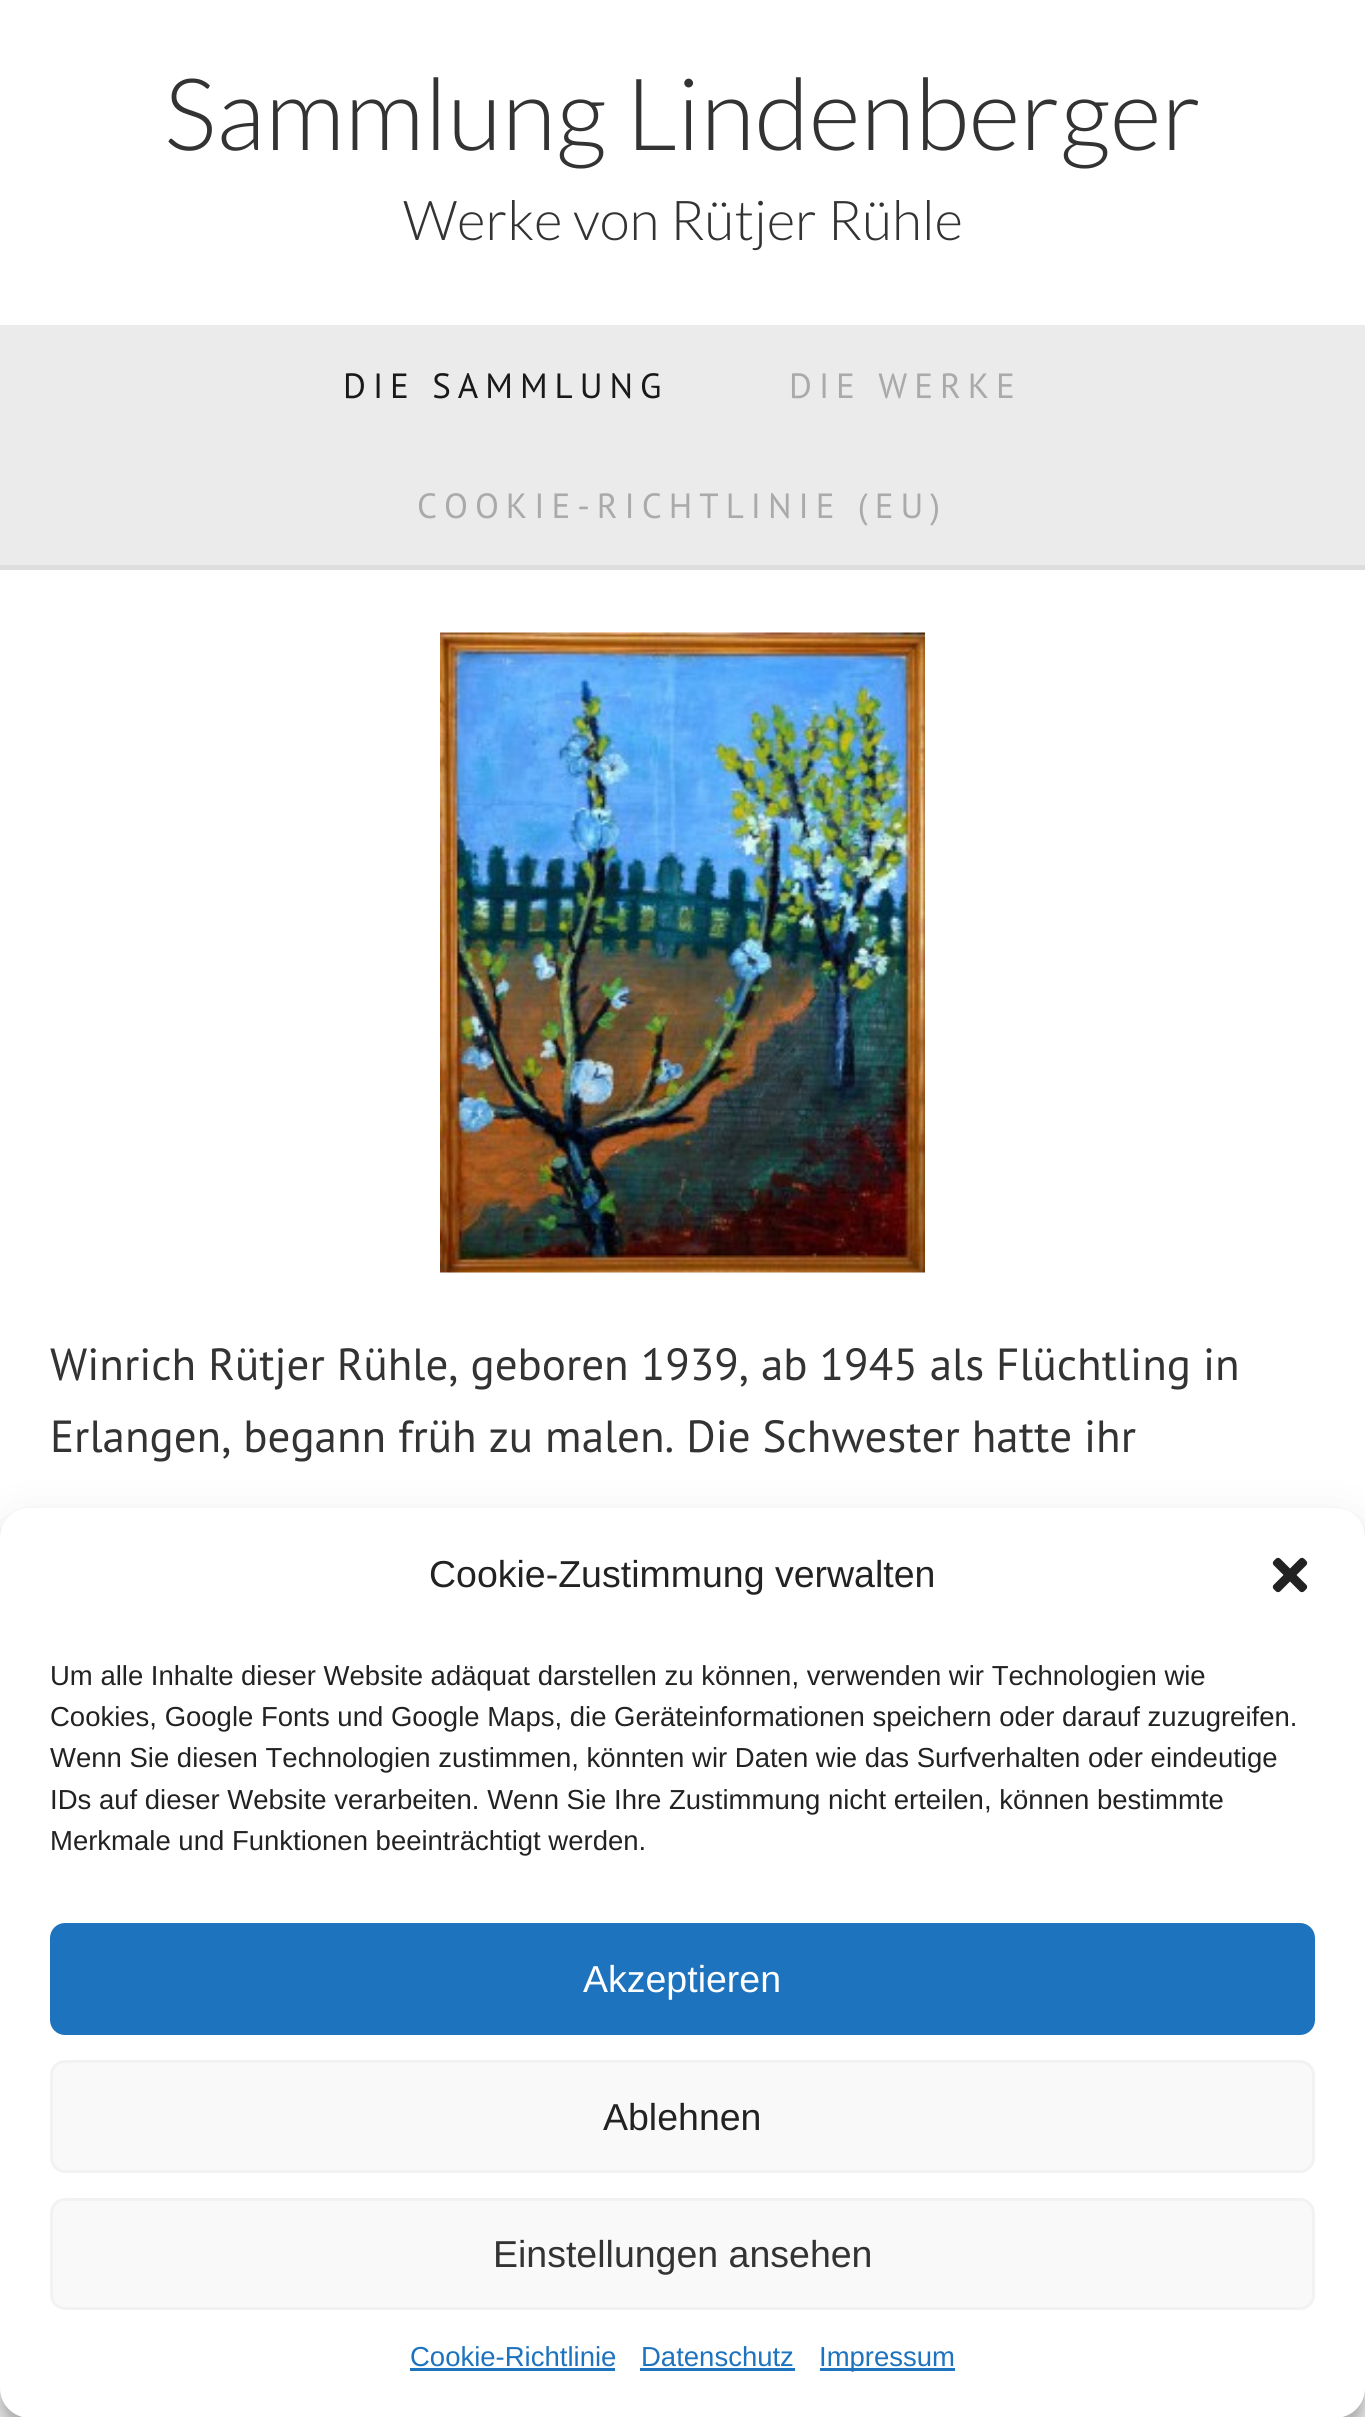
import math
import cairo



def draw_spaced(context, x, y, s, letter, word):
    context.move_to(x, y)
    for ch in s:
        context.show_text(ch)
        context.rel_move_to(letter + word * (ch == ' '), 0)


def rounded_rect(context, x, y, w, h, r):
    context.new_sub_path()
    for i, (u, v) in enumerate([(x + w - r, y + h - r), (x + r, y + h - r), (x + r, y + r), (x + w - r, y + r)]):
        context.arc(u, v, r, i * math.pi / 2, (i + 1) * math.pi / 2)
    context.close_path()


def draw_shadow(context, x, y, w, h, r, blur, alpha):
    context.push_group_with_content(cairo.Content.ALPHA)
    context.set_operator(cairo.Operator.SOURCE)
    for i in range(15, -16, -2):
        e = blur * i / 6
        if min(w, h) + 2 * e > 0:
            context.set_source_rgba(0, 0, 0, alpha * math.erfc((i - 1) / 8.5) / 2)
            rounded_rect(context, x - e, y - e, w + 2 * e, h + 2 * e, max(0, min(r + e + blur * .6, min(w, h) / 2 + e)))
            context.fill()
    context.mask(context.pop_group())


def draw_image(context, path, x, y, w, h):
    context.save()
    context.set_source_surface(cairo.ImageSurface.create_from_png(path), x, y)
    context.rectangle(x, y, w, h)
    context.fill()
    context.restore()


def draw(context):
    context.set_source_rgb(1, 1, 1)
    context.paint()
    context.set_source_rgb(235 / 255, 235 / 255, 235 / 255)
    context.rectangle(0, 325, 1365, 240)
    context.fill()
    context.set_source_rgb(221 / 255, 221 / 255, 221 / 255)
    context.rectangle(0, 565, 1365, 5)
    context.fill()
    draw_image(context, "images/1.png", 440, 632, 485, 641)
    context.set_source_rgb(0, 0, 0)
    draw_shadow(context, 0, 1523, 1365, 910, 30, 7.5, 0.23)
    draw_shadow(context, 0, 1533, 1365, 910, 30, 25, 0.19)
    context.set_source_rgb(1, 1, 1)
    rounded_rect(context, 0, 1508, 1365, 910, 30)
    context.fill()
    draw_image(context, "images/2.png", 1272, 1557, 36, 36)
    context.set_source_rgb(30 / 255, 115 / 255, 190 / 255)
    rounded_rect(context, 51.5, 1924.5, 1262, 109, 13.5)
    context.fill_preserve()
    context.set_line_width(3)
    context.stroke()
    context.set_source_rgb(249 / 255, 249 / 255, 249 / 255)
    rounded_rect(context, 51.5, 2061.5, 1262, 110, 13.5)
    context.fill_preserve()
    context.set_source_rgb(242 / 255, 242 / 255, 242 / 255)
    context.stroke()
    context.set_source_rgb(249 / 255, 249 / 255, 249 / 255)
    rounded_rect(context, 51.5, 2199.5, 1262, 109, 13.5)
    context.fill_preserve()
    context.set_source_rgb(242 / 255, 242 / 255, 242 / 255)
    context.stroke()
    context.set_source_rgb(30 / 255, 115 / 255, 190 / 255)
    context.rectangle(410, 2368, 205, 3)
    context.fill()
    context.rectangle(640, 2368, 155, 3)
    context.fill()
    context.rectangle(820, 2368, 135, 3)
    context.fill()
    context.select_font_face("Lato Light")
    context.set_font_size(100)
    context.set_source_rgb(51 / 255, 51 / 255, 51 / 255)
    context.move_to(164, 150)
    context.show_text("Sammlung Lindenberger")
    context.set_font_size(55)
    context.move_to(403, 240)
    context.show_text("Werke von Rütjer Rühle")
    context.select_font_face("PT Sans")
    context.set_font_size(35)
    context.set_source_rgb(25 / 255, 25 / 255, 25 / 255)
    draw_spaced(context, 343, 398, "DIE SAMMLUNG", 7, 0)
    context.set_source_rgb(170 / 255, 170 / 255, 170 / 255)
    draw_spaced(context, 789, 398, "DIE WERKE", 7, 0)
    draw_spaced(context, 417, 518, "COOKIE-RICHTLINIE (EU)", 7, 0)
    context.set_font_size(45)
    context.set_source_rgb(51 / 255, 51 / 255, 51 / 255)
    context.move_to(50, 1380)
    context.show_text("Winrich Rütjer Rühle, geboren 1939, ab 1945 als Flüchtling in")
    context.move_to(50, 1452)
    context.show_text("Erlangen, begann früh zu malen. Die Schwester hatte ihr")
    context.select_font_face("Liberation Sans")
    context.set_font_size(37.5)
    context.set_source_rgb(34 / 255, 34 / 255, 34 / 255)
    context.move_to(429, 1587)
    context.show_text("Cookie-Zustimmung verwalten")
    context.set_font_size(27.5)
    context.move_to(50, 1685)
    context.show_text("Um alle Inhalte dieser Website adäquat darstellen zu können, verwenden wir Technologien wie")
    context.move_to(50, 1726)
    context.show_text("Cookies, Google Fonts und Google Maps, die Geräteinformationen speichern oder darauf zuzugreifen.")
    context.move_to(50, 1767)
    context.show_text("Wenn Sie diesen Technologien zustimmen, könnten wir Daten wie das Surfverhalten oder eindeutige")
    context.move_to(50, 1809)
    context.show_text("IDs auf dieser Website verarbeiten. Wenn Sie Ihre Zustimmung nicht erteilen, können bestimmte")
    context.move_to(50, 1850)
    context.show_text("Merkmale und Funktionen beeinträchtigt werden.")
    context.set_font_size(37.5)
    context.set_source_rgb(1, 1, 1)
    context.move_to(583, 1992)
    context.show_text("Akzeptieren")
    context.set_source_rgb(34 / 255, 34 / 255, 34 / 255)
    context.move_to(603, 2130)
    context.show_text("Ablehnen")
    context.set_source_rgb(51 / 255, 51 / 255, 51 / 255)
    context.move_to(493, 2267)
    context.show_text("Einstellungen ansehen")
    context.set_font_size(27.5)
    context.set_source_rgb(30 / 255, 115 / 255, 190 / 255)
    context.move_to(410, 2366)
    context.show_text("Cookie-Richtlinie")
    context.move_to(641, 2366)
    context.show_text("Datenschutz")
    context.move_to(819, 2366)
    context.show_text("Impressum")


surface = cairo.ImageSurface(cairo.Format.RGB24, 1365, 2417)
context = cairo.Context(surface)
options = cairo.FontOptions()
options.set_hint_metrics(cairo.HintMetrics.OFF)
options.set_hint_style(cairo.HintStyle.NONE)
context.set_font_options(options)
context.set_miter_limit(4)
draw(context)
surface.write_to_png("out.png")
